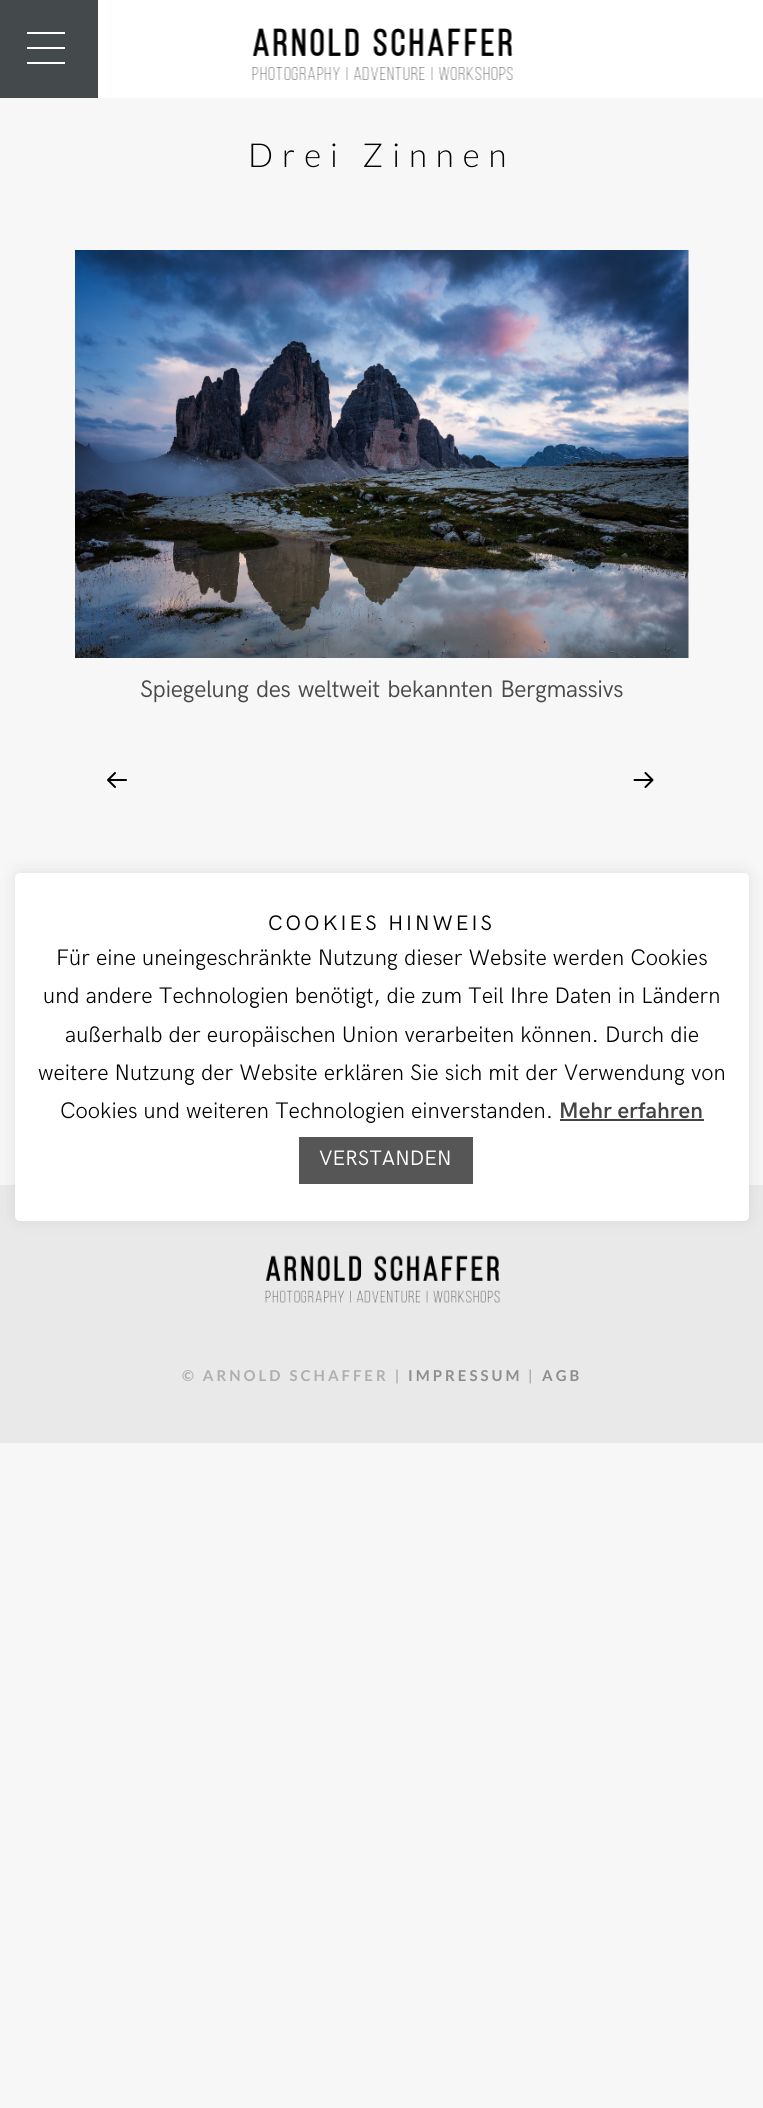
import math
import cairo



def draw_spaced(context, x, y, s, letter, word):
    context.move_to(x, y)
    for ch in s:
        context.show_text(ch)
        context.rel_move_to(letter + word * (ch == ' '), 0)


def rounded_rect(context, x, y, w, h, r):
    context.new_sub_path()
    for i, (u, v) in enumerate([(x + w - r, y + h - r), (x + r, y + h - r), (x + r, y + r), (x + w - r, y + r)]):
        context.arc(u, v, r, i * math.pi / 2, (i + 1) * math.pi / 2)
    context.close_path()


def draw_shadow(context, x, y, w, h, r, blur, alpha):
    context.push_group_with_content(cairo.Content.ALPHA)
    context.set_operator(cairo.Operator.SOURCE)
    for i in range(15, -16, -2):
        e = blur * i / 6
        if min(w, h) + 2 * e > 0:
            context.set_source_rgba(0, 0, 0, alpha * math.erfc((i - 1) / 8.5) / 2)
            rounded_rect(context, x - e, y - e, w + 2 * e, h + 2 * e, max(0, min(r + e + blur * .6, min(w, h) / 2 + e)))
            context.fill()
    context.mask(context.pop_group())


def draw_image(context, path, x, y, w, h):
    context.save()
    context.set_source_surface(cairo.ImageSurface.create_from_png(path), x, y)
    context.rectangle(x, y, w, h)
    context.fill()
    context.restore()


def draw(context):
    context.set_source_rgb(247 / 255, 247 / 255, 247 / 255)
    context.paint()
    context.set_source_rgb(68 / 255, 73 / 255, 75 / 255)
    context.rectangle(0, 0, 98, 98)
    context.fill()
    context.set_source_rgb(1, 1, 1)
    context.rectangle(27, 47, 38, 2)
    context.fill()
    context.rectangle(27, 32, 38, 2)
    context.fill()
    context.rectangle(27, 62, 38, 2)
    context.fill()
    context.rectangle(98, 0, 665, 98)
    context.fill()
    draw_image(context, "images/1.png", 252, 28, 261, 52)
    draw_image(context, "images/2.png", 75, 250, 614, 408)
    draw_image(context, "images/3.png", 107, 772, 20, 16)
    draw_image(context, "images/4.png", 633, 772, 21, 16)
    context.set_source_rgb(233 / 255, 233 / 255, 233 / 255)
    context.rectangle(0, 1185, 763, 258)
    context.fill()
    draw_image(context, "images/5.png", 265, 1255, 235, 48)
    context.set_source_rgb(172 / 255, 171 / 255, 171 / 255)
    draw_shadow(context, 15, 872, 734, 348, 5, 7.5, 0.3)
    context.set_source_rgb(1, 1, 1)
    rounded_rect(context, 15, 873, 734, 348, 5)
    context.fill()
    context.set_source_rgb(68 / 255, 68 / 255, 68 / 255)
    context.rectangle(560, 1119, 144, 2)
    context.fill()
    context.set_source_rgb(86 / 255, 86 / 255, 86 / 255)
    context.rectangle(299, 1137, 174, 47)
    context.fill()
    context.select_font_face("Lato Light")
    context.set_font_size(33)
    context.set_source_rgb(0, 0, 0)
    draw_spaced(context, 248, 167, "Drei Zinnen", 9, 0)
    context.select_font_face("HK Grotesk")
    context.set_font_size(24)
    context.set_source_rgb(74 / 255, 74 / 255, 74 / 255)
    draw_spaced(context, 140, 697, "Spiegelung des weltweit bekannten Bergmassivs", -0.4, 1.5)
    context.select_font_face("Lato", cairo.FontSlant.NORMAL, cairo.FontWeight.BOLD)
    context.set_font_size(15)
    context.set_source_rgb(175 / 255, 175 / 255, 175 / 255)
    draw_spaced(context, 182, 1381, "© ARNOLD SCHAFFER |", 3, 0)
    context.set_source_rgb(142 / 255, 142 / 255, 142 / 255)
    draw_spaced(context, 408, 1381, "IMPRESSUM", 3, 0)
    context.set_source_rgb(175 / 255, 175 / 255, 175 / 255)
    draw_spaced(context, 528, 1381, "|", 3, 0)
    context.set_source_rgb(142 / 255, 142 / 255, 142 / 255)
    draw_spaced(context, 542, 1381, "AGB", 3, 0)
    context.select_font_face("HK Grotesk")
    context.set_font_size(21)
    context.set_source_rgb(0, 0, 0)
    draw_spaced(context, 268, 930, "COOKIES HINWEIS", 3, 0)
    context.select_font_face("HK Grotesk Light")
    context.set_font_size(22.5)
    context.move_to(56, 965)
    context.show_text("Für eine uneingeschränkte Nutzung dieser Website werden Cookies")
    context.move_to(43, 1003)
    context.show_text("und andere Technologien benötigt, die zum Teil Ihre Daten in Ländern")
    context.move_to(65, 1042)
    context.show_text("außerhalb der europäischen Union verarbeiten können. Durch die")
    context.move_to(38, 1080)
    context.show_text("weitere Nutzung der Website erklären Sie sich mit der Verwendung von")
    context.move_to(60, 1118)
    context.show_text("Cookies und weiteren Technologien einverstanden.")
    context.select_font_face("HK Grotesk SemiBold")
    context.set_source_rgb(68 / 255, 68 / 255, 68 / 255)
    context.move_to(559, 1118)
    context.show_text("Mehr erfahren")
    context.select_font_face("HK Grotesk")
    context.set_font_size(21)
    context.set_source_rgb(1, 1, 1)
    context.move_to(319, 1165)
    context.show_text("VERSTANDEN")


surface = cairo.ImageSurface(cairo.Format.RGB24, 763, 2108)
context = cairo.Context(surface)
options = cairo.FontOptions()
options.set_hint_metrics(cairo.HintMetrics.OFF)
options.set_hint_style(cairo.HintStyle.NONE)
context.set_font_options(options)
context.set_miter_limit(4)
draw(context)
surface.write_to_png("out.png")
